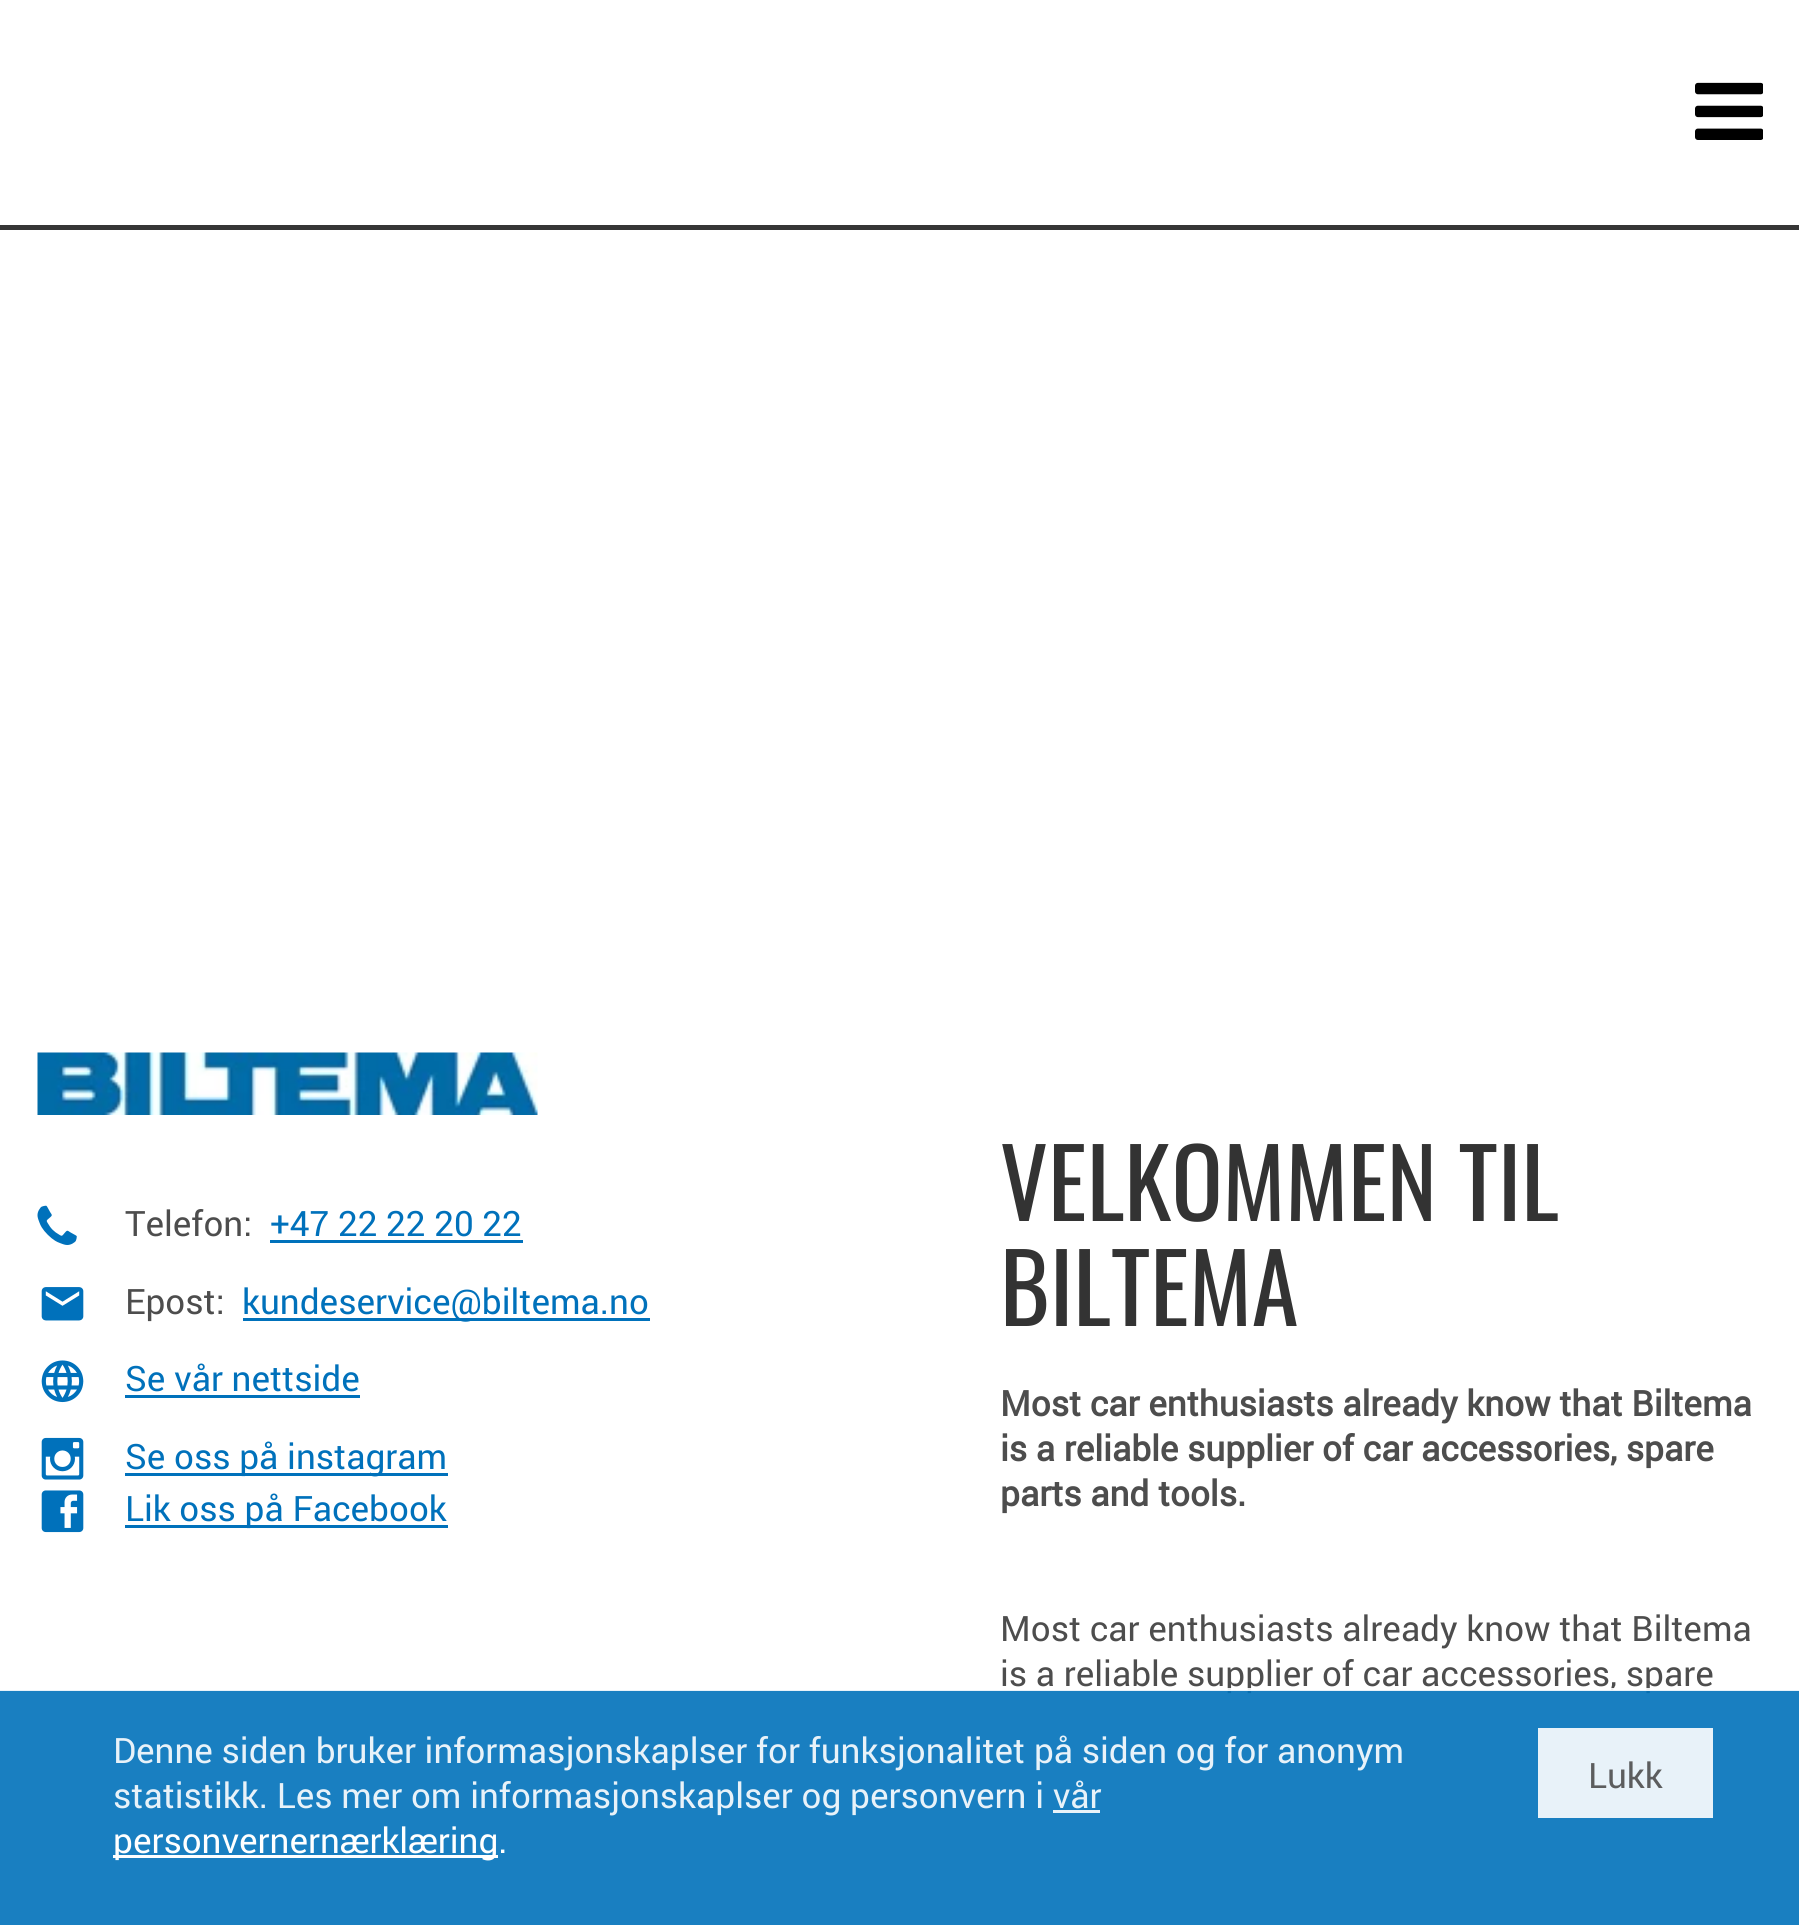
import math
import cairo



def draw_image(context, path, x, y, w, h):
    context.save()
    context.set_source_surface(cairo.ImageSurface.create_from_png(path), x, y)
    context.rectangle(x, y, w, h)
    context.fill()
    context.restore()


def draw(context):
    context.set_source_rgb(1, 1, 1)
    context.paint()
    draw_image(context, "images/1.png", 1695, 82, 68, 58)
    context.set_source_rgb(54 / 255, 54 / 255, 54 / 255)
    context.rectangle(0, 225, 1799, 5)
    context.fill()
    draw_image(context, "images/2.png", 37, 1052, 501, 63)
    draw_image(context, "images/3.png", 37, 1205, 40, 40)
    context.set_source_rgb(0, 113 / 255, 187 / 255)
    context.rectangle(270, 1240, 253, 3)
    context.fill()
    draw_image(context, "images/4.png", 41, 1287, 43, 34)
    context.rectangle(243, 1318, 407, 3)
    context.fill()
    draw_image(context, "images/5.png", 41, 1360, 43, 43)
    context.rectangle(125, 1395, 235, 3)
    context.fill()
    draw_image(context, "images/6.png", 41, 1437, 43, 43)
    context.rectangle(125, 1473, 323, 3)
    context.fill()
    draw_image(context, "images/7.png", 41, 1490, 43, 43)
    context.rectangle(125, 1525, 323, 3)
    context.fill()
    context.select_font_face("Roboto")
    context.set_font_size(35)
    context.set_source_rgb(77 / 255, 77 / 255, 77 / 255)
    context.move_to(125, 1236)
    context.show_text("Telefon:")
    context.set_source_rgb(0, 113 / 255, 187 / 255)
    context.move_to(270, 1236)
    context.show_text("+47 22 22 20 22")
    context.set_source_rgb(77 / 255, 77 / 255, 77 / 255)
    context.move_to(125, 1314)
    context.show_text("Epost:")
    context.set_source_rgb(0, 113 / 255, 187 / 255)
    context.move_to(242, 1314)
    context.show_text("kundeservice@biltema.no")
    context.move_to(125, 1391)
    context.show_text("Se vår nettside")
    context.move_to(125, 1469)
    context.show_text("Se oss på instagram")
    context.move_to(125, 1521)
    context.show_text("Lik oss på Facebook")
    context.select_font_face("Oswald")
    context.set_font_size(95)
    context.set_source_rgb(51 / 255, 51 / 255, 51 / 255)
    context.move_to(1000, 1221)
    context.show_text("VELKOMMEN TIL")
    context.move_to(1000, 1326)
    context.show_text("BILTEMA")
    context.select_font_face("Roboto", cairo.FontSlant.NORMAL, cairo.FontWeight.BOLD)
    context.set_font_size(35)
    context.set_source_rgb(77 / 255, 77 / 255, 77 / 255)
    context.move_to(1000, 1416)
    context.show_text("Most car enthusiasts already know that Biltema")
    context.move_to(1000, 1461)
    context.show_text("is a reliable supplier of car accessories, spare")
    context.move_to(1000, 1506)
    context.show_text("parts and tools.")
    context.select_font_face("Roboto")
    context.move_to(1000, 1641)
    context.show_text("Most car enthusiasts already know that Biltema")
    context.move_to(1000, 1686)
    context.show_text("is a reliable supplier of car accessories, spare")
    context.set_source_rgba(0, 113 / 255, 187 / 255, 0.9)
    context.rectangle(0, 1690, 1799, 235)
    context.fill()
    context.set_source_rgba(1, 1, 1, 0.9)
    context.rectangle(0, 1688, 1799, 3)
    context.fill()
    context.set_source_rgb(232 / 255, 242 / 255, 249 / 255)
    context.move_to(113, 1763)
    context.show_text("Denne siden bruker informasjonskaplser for funksjonalitet på siden og for anonym")
    context.move_to(113, 1808)
    context.show_text("statistikk. Les mer om informasjonskaplser og personvern i vår")
    context.set_source_rgba(1, 1, 1, 0.9)
    context.rectangle(1053, 1810, 47, 3)
    context.fill()
    context.set_source_rgb(1, 1, 1)
    context.rectangle(113, 1855, 385, 3)
    context.fill()
    context.move_to(113, 1853)
    context.show_text("personvernernærklæring.")
    context.set_source_rgba(1, 1, 1, 0.9)
    context.rectangle(1538, 1728, 175, 90)
    context.fill()
    context.set_source_rgb(92 / 255, 93 / 255, 94 / 255)
    context.move_to(1588, 1788)
    context.show_text("Lukk")


surface = cairo.ImageSurface(cairo.Format.RGB24, 1799, 1925)
context = cairo.Context(surface)
options = cairo.FontOptions()
options.set_hint_metrics(cairo.HintMetrics.OFF)
options.set_hint_style(cairo.HintStyle.NONE)
context.set_font_options(options)
context.set_miter_limit(4)
draw(context)
surface.write_to_png("out.png")
